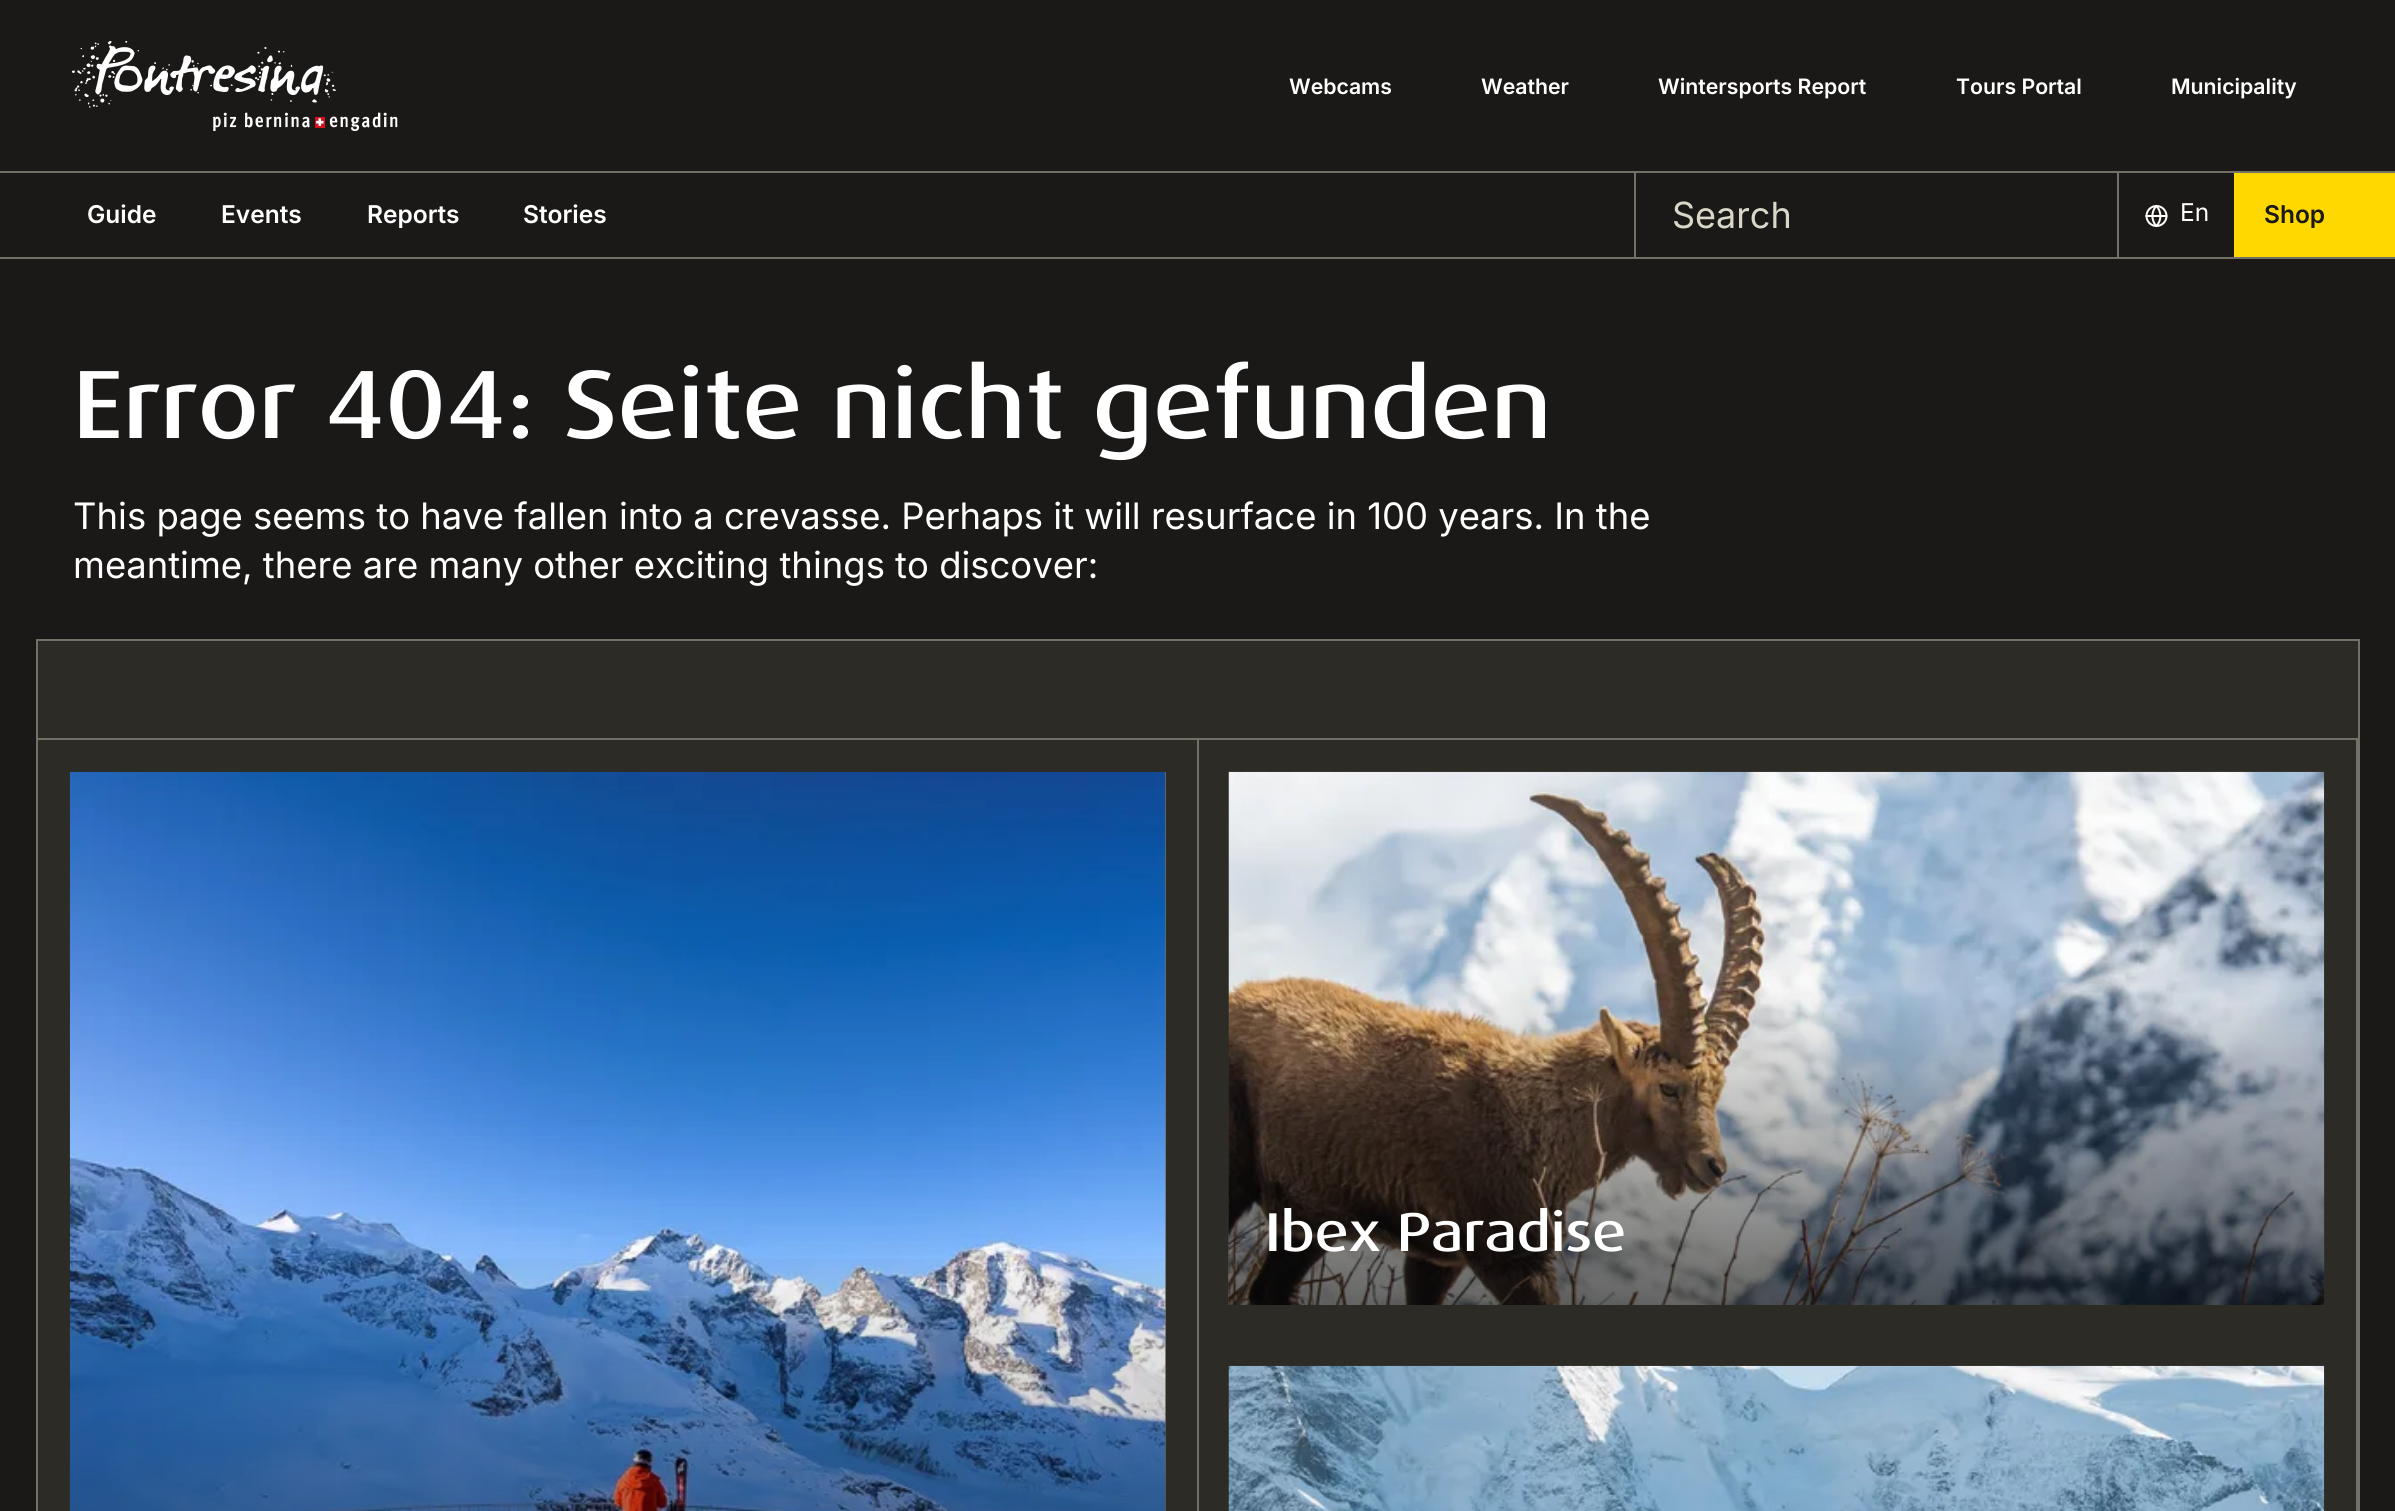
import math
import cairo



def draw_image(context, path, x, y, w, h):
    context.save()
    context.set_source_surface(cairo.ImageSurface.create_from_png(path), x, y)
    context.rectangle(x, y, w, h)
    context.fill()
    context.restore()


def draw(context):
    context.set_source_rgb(26 / 255, 25 / 255, 23 / 255)
    context.paint()
    draw_image(context, "images/1.png", 72, 41, 326, 90)
    context.set_source_rgb(115 / 255, 112 / 255, 101 / 255)
    context.rectangle(0, 171, 2395, 2)
    context.fill()
    context.rectangle(0, 257, 2395, 2)
    context.fill()
    context.rectangle(2117, 173, 2, 84)
    context.fill()
    context.rectangle(1634, 173, 2, 84)
    context.fill()
    draw_image(context, "images/2.png", 2145, 204, 23, 24)
    context.set_source_rgb(1, 216 / 255, 0)
    context.rectangle(2234, 173, 161, 84)
    context.fill()
    context.set_source_rgb(44 / 255, 43 / 255, 37 / 255)
    context.rectangle(38, 641, 2320, 870)
    context.fill()
    context.set_source_rgb(115 / 255, 112 / 255, 101 / 255)
    context.rectangle(36, 639, 2324, 2)
    context.fill()
    context.rectangle(2358, 639, 2, 872)
    context.fill()
    context.rectangle(36, 639, 2, 872)
    context.fill()
    context.rectangle(38, 738, 2320, 2)
    context.fill()
    context.rectangle(1197, 740, 2, 771)
    context.fill()
    context.rectangle(71, 773, 1094, 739)
    context.stroke()
    draw_image(context, "images/3.png", 69, 771, 1097, 740)
    gradient = cairo.LinearGradient(618, 772, 618, 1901)
    gradient.add_color_stop_rgba(0.41, 0, 0, 0, 0)
    gradient.add_color_stop_rgba(1, 0, 0, 0, 0.6)
    context.set_source(gradient)
    context.rectangle(70, 1259, 1096, 252)
    context.fill()
    context.set_source_rgb(115 / 255, 112 / 255, 101 / 255)
    context.rectangle(2356, 740, 2, 771)
    context.fill()
    draw_image(context, "images/4.png", 1228, 771, 1097, 534)
    draw_image(context, "images/5.png", 1228, 1365, 1097, 146)
    context.select_font_face("Inter SemiBold")
    context.set_font_size(21.25)
    context.set_source_rgb(1, 1, 1)
    context.move_to(1289, 94)
    context.show_text("Webcams")
    context.move_to(1481, 94)
    context.show_text("Weather")
    context.move_to(1658, 94)
    context.show_text("Wintersports Report")
    context.move_to(1956, 94)
    context.show_text("Tours Portal")
    context.move_to(2171, 94)
    context.show_text("Municipality")
    context.set_font_size(24.5)
    context.move_to(87, 223)
    context.show_text("Guide")
    context.move_to(221, 223)
    context.show_text("Events")
    context.move_to(367, 223)
    context.show_text("Reports")
    context.move_to(523, 223)
    context.show_text("Stories")
    context.select_font_face("Inter")
    context.set_font_size(36)
    context.set_source_rgb(218 / 255, 215 / 255, 201 / 255)
    context.move_to(1672, 228)
    context.show_text("Search")
    context.set_font_size(24.5)
    context.set_source_rgb(1, 1, 1)
    context.move_to(2180, 221)
    context.show_text("En")
    context.select_font_face("Inter SemiBold")
    context.set_source_rgb(26 / 255, 25 / 255, 23 / 255)
    context.move_to(2264, 223)
    context.show_text("Shop")
    context.select_font_face("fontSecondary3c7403")
    context.set_font_size(97.25)
    context.set_source_rgb(1, 1, 1)
    context.move_to(73, 438)
    context.show_text("Error 404: Seite nicht gefunden")
    context.select_font_face("Inter")
    context.set_font_size(36.45)
    context.move_to(73, 529)
    context.show_text("This page seems to have fallen into a crevasse. Perhaps it will resurface in 100 years. In the")
    context.move_to(73, 578)
    context.show_text("meantime, there are many other exciting things to discover:")
    context.select_font_face("fontSecondary3c7403")
    context.set_font_size(54.75)
    context.move_to(1265, 1251)
    context.show_text("Ibex Paradise")


surface = cairo.ImageSurface(cairo.Format.RGB24, 2395, 1511)
context = cairo.Context(surface)
options = cairo.FontOptions()
options.set_hint_metrics(cairo.HintMetrics.OFF)
options.set_hint_style(cairo.HintStyle.NONE)
context.set_font_options(options)
context.set_miter_limit(4)
draw(context)
surface.write_to_png("out.png")
